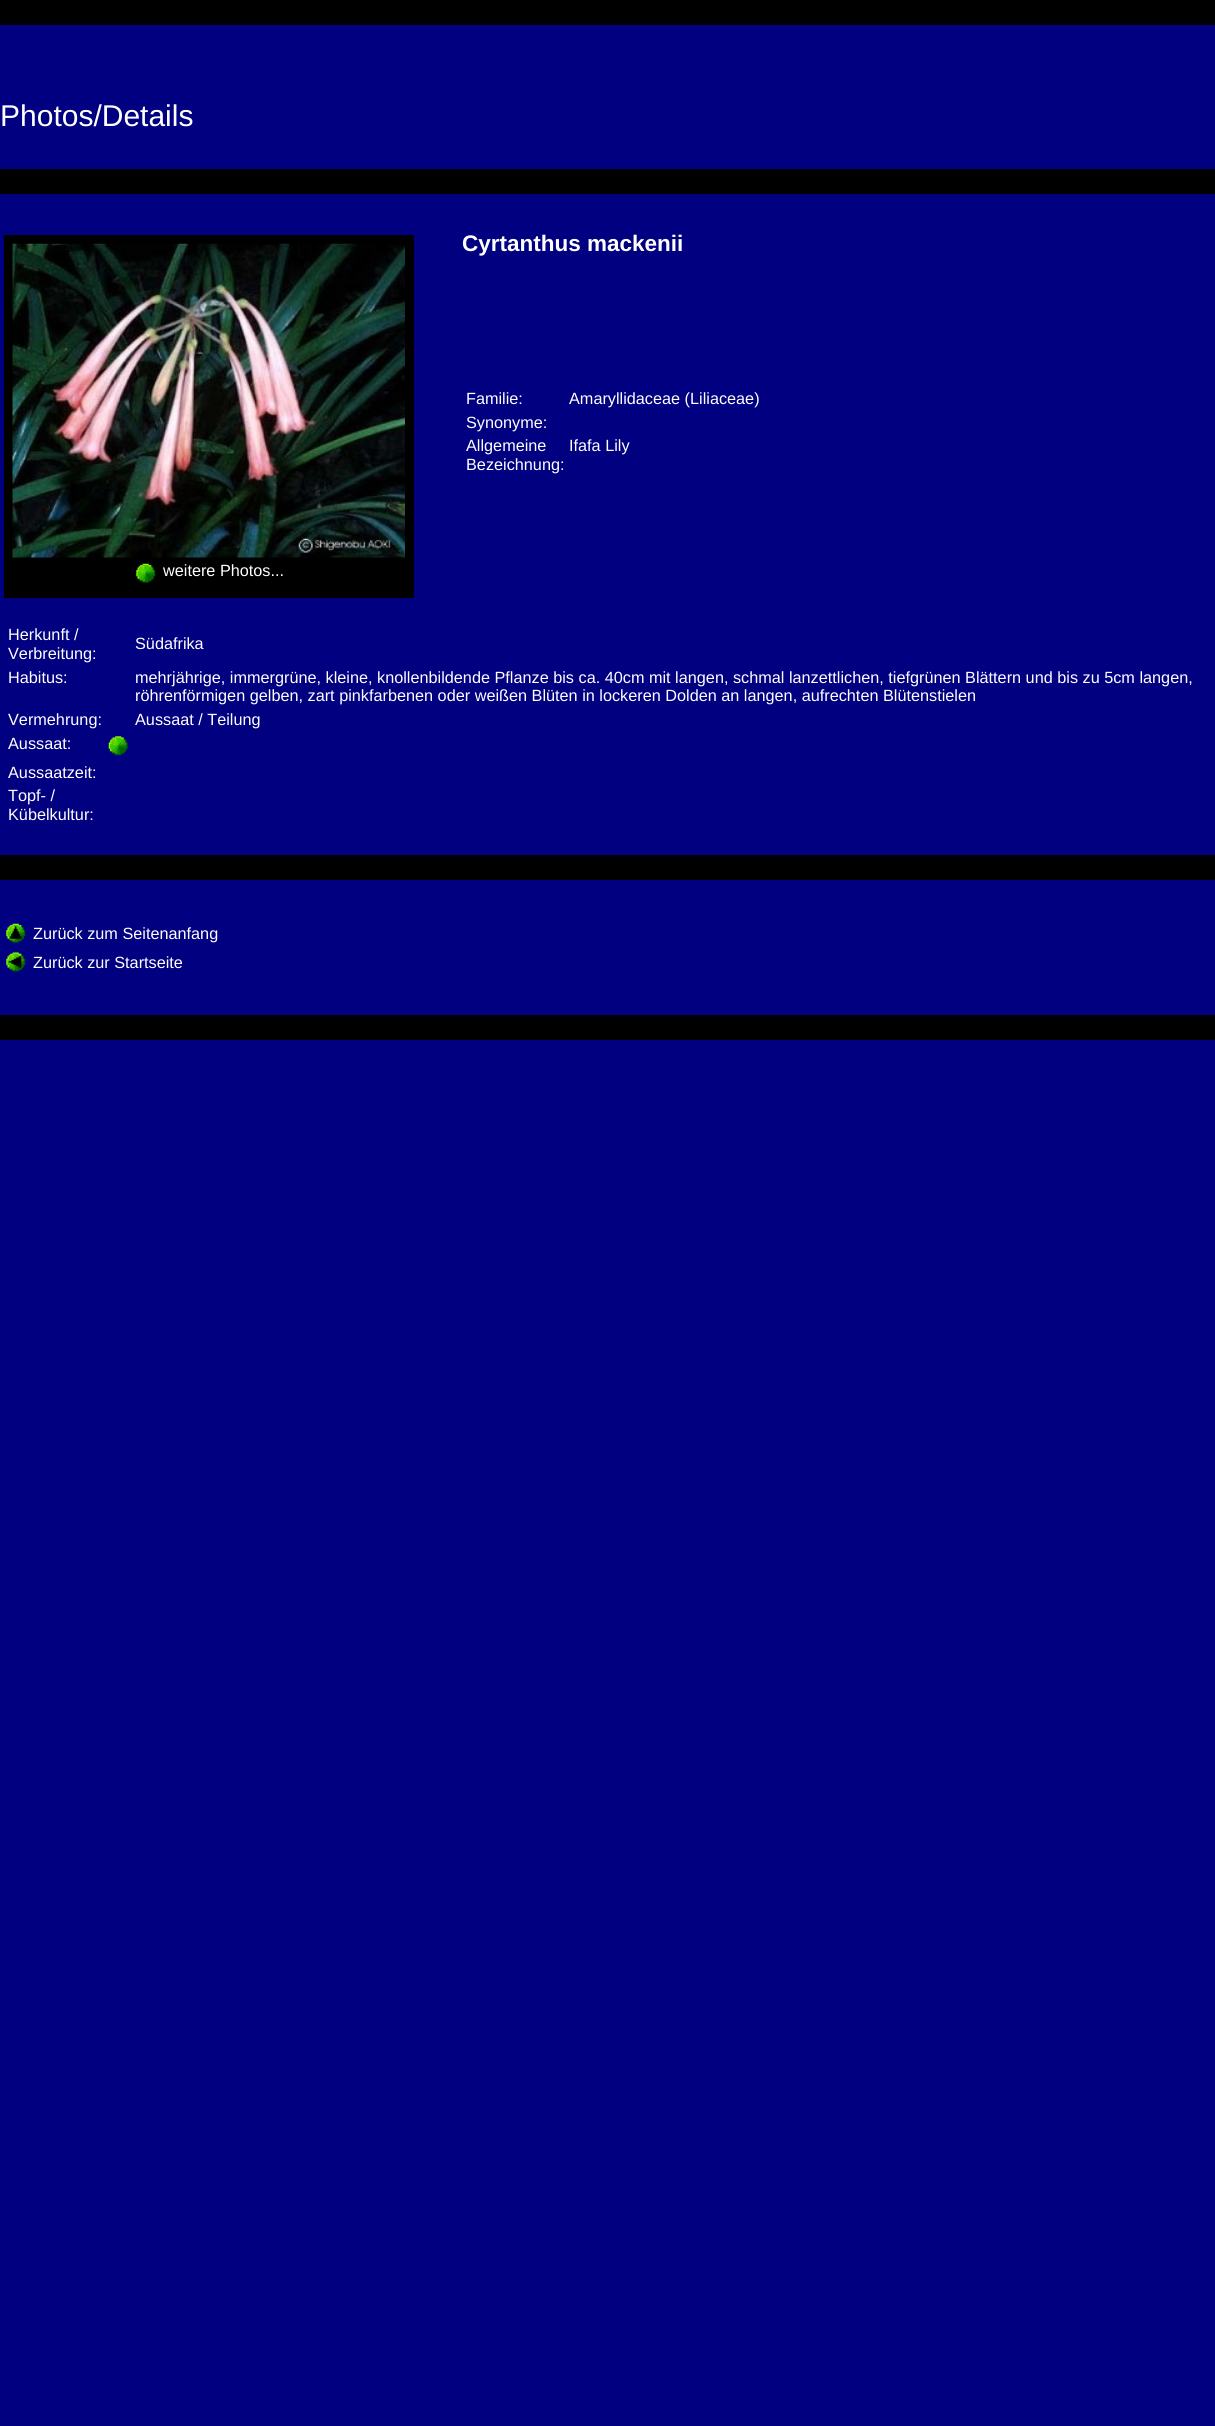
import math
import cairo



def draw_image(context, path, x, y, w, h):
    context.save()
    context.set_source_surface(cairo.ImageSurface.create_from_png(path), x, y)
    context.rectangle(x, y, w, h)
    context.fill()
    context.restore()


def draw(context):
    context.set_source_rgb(0, 0, 128 / 255)
    context.paint()
    context.set_source_rgb(0, 0, 0)
    context.rectangle(0, 0, 1215, 25)
    context.fill()
    context.rectangle(0, 169, 1215, 25)
    context.fill()
    context.rectangle(4, 235, 410, 363)
    context.fill()
    draw_image(context, "images/1.png", 12, 243, 393, 315)
    draw_image(context, "images/2.png", 136, 563, 20, 20)
    draw_image(context, "images/3.png", 108, 736, 20, 20)
    context.rectangle(0, 855, 1215, 25)
    context.fill()
    draw_image(context, "images/4.png", 6, 923, 20, 20)
    draw_image(context, "images/5.png", 6, 952, 20, 20)
    context.rectangle(0, 1015, 1215, 25)
    context.fill()
    context.select_font_face("Liberation Sans")
    context.set_font_size(30)
    context.set_source_rgb(1, 1, 1)
    context.move_to(0, 126)
    context.show_text("Photos/Details")
    context.select_font_face("Liberation Sans", cairo.FontSlant.NORMAL, cairo.FontWeight.BOLD)
    context.set_font_size(22.5)
    context.move_to(462, 251)
    context.show_text("Cyrtanthus mackenii")
    context.select_font_face("Liberation Sans")
    context.set_font_size(16.25)
    context.move_to(466, 404)
    context.show_text("Familie:")
    context.move_to(569, 404)
    context.show_text("Amaryllidaceae (Liliaceae)")
    context.move_to(466, 428)
    context.show_text("Synonyme:")
    context.move_to(466, 451)
    context.show_text("Allgemeine")
    context.move_to(466, 470)
    context.show_text("Bezeichnung:")
    context.move_to(569, 451)
    context.show_text("Ifafa Lily")
    context.move_to(163, 576)
    context.show_text("weitere Photos...")
    context.move_to(8, 640)
    context.show_text("Herkunft /")
    context.move_to(8, 659)
    context.show_text("Verbreitung:")
    context.move_to(135, 649)
    context.show_text("Südafrika")
    context.move_to(8, 683)
    context.show_text("Habitus:")
    context.move_to(135, 683)
    context.show_text("mehrjährige, immergrüne, kleine, knollenbildende Pflanze bis ca. 40cm mit langen, schmal lanzettlichen, tiefgrünen Blättern und bis zu 5cm langen,")
    context.move_to(135, 701)
    context.show_text("röhrenförmigen gelben, zart pinkfarbenen oder weißen Blüten in lockeren Dolden an langen, aufrechten Blütenstielen")
    context.move_to(8, 725)
    context.show_text("Vermehrung:")
    context.move_to(135, 725)
    context.show_text("Aussaat / Teilung")
    context.move_to(8, 749)
    context.show_text("Aussaat:")
    context.move_to(8, 778)
    context.show_text("Aussaatzeit:")
    context.move_to(8, 801)
    context.show_text("Topf- /")
    context.move_to(8, 820)
    context.show_text("Kübelkultur:")
    context.move_to(33, 939)
    context.show_text("Zurück zum Seitenanfang")
    context.move_to(33, 968)
    context.show_text("Zurück zur Startseite")


surface = cairo.ImageSurface(cairo.Format.RGB24, 1215, 2426)
context = cairo.Context(surface)
options = cairo.FontOptions()
options.set_hint_metrics(cairo.HintMetrics.OFF)
options.set_hint_style(cairo.HintStyle.NONE)
context.set_font_options(options)
context.set_miter_limit(4)
draw(context)
surface.write_to_png("out.png")
